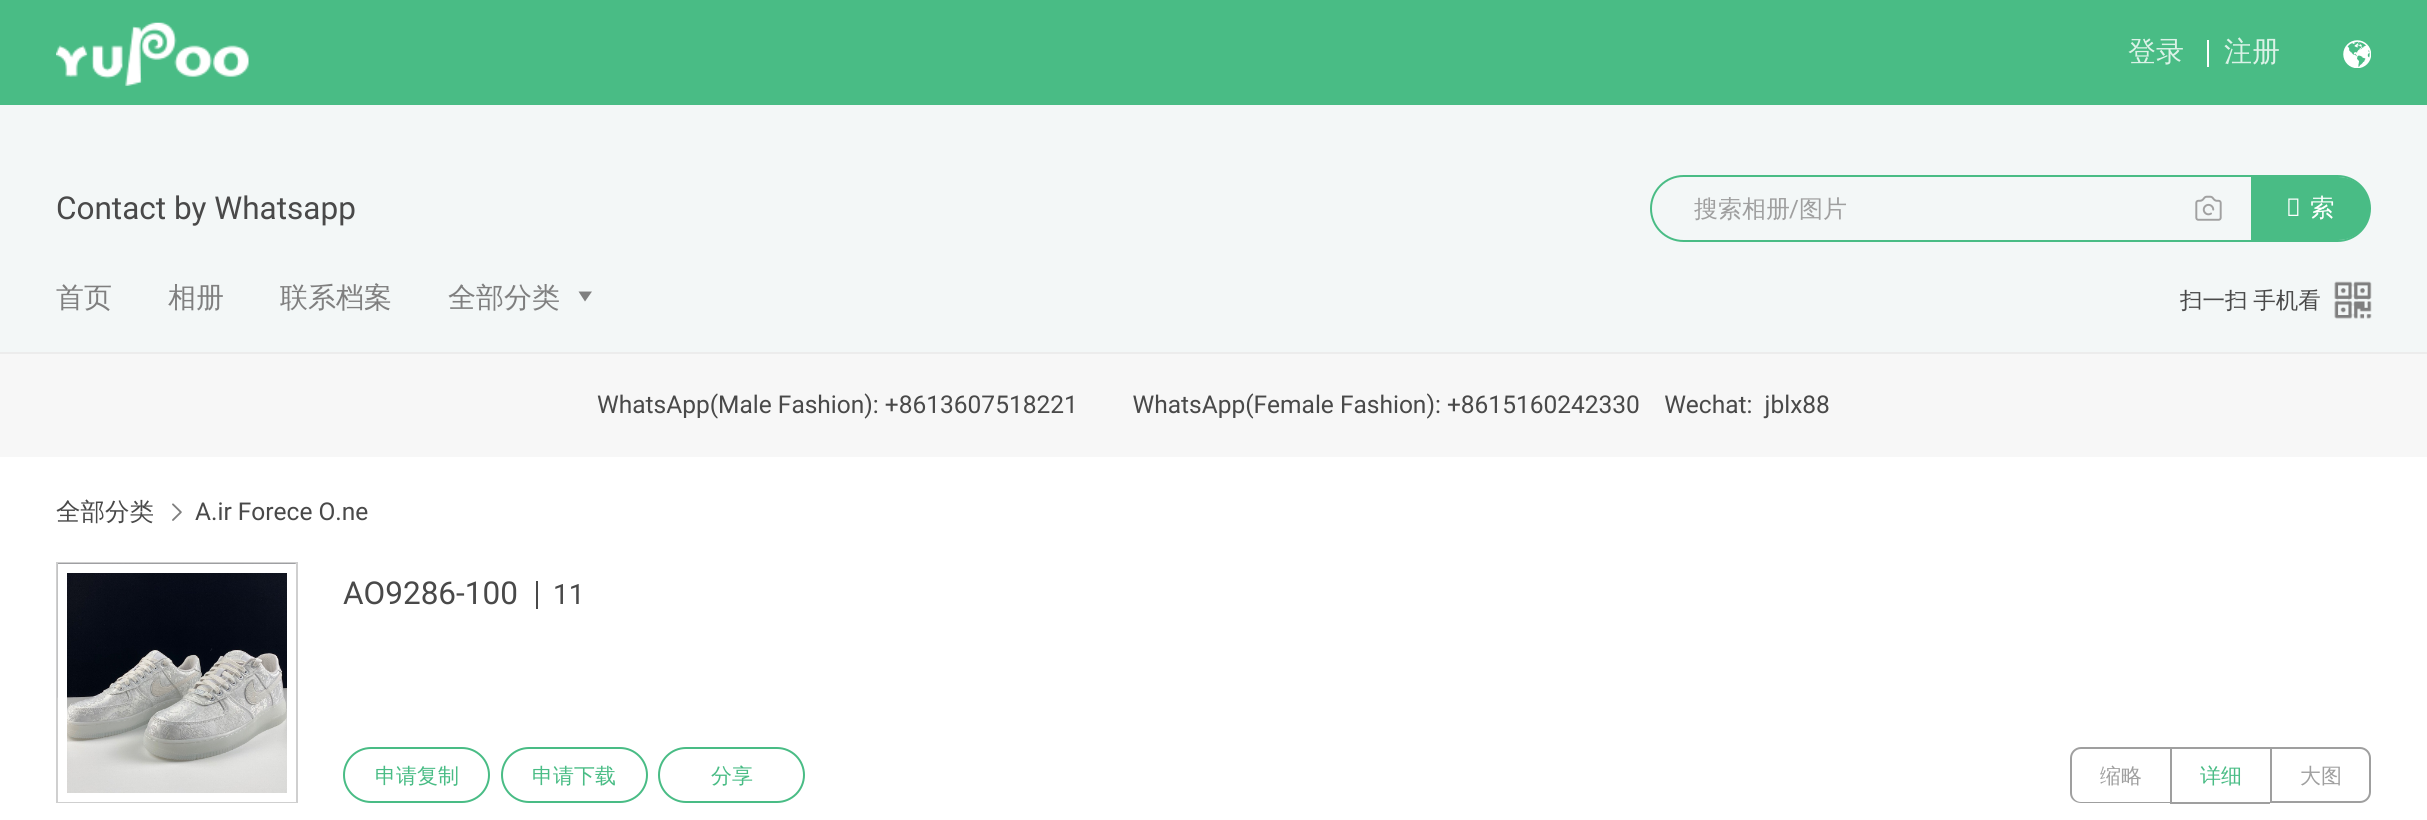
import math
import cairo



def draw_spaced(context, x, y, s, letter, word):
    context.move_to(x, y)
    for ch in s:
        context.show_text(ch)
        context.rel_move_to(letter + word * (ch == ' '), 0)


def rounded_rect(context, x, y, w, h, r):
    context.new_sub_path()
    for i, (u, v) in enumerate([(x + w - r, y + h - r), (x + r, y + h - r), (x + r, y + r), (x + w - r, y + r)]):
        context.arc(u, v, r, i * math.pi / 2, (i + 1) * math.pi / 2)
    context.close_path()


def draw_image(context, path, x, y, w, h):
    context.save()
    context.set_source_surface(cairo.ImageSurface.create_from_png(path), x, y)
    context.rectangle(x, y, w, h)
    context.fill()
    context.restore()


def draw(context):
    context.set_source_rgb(1, 1, 1)
    context.paint()
    context.set_source_rgb(73 / 255, 188 / 255, 133 / 255)
    context.rectangle(0, 0, 2427, 105)
    context.fill()
    draw_image(context, "images/1.png", 56, 22, 193, 64)
    context.set_source_rgb(1, 1, 1)
    context.rectangle(2207, 40, 2, 27)
    context.fill()
    draw_image(context, "images/2.png", 2343, 40, 28, 28)
    context.set_source_rgb(243 / 255, 247 / 255, 247 / 255)
    context.rectangle(0, 105, 2427, 247)
    context.fill()
    rounded_rect(context, 1651, 176, 719, 65, 32.5)
    context.set_source_rgb(73 / 255, 188 / 255, 133 / 255)
    context.stroke()
    draw_image(context, "images/3.png", 2195, 195, 27, 26)
    context.new_path()
    context.move_to(2252, 178)
    context.line_to(2338.5, 178)
    context.curve_to(2355.5, 178, 2369, 191.5, 2369, 208.5)
    context.curve_to(2369, 225.5, 2355.5, 239, 2338.5, 239)
    context.line_to(2252, 239)
    context.close_path()
    context.fill_preserve()
    context.stroke()
    context.set_source_rgb(127 / 255, 127 / 255, 127 / 255)
    context.new_path()
    context.move_to(585, 301.5)
    context.line_to(578.5, 291.5)
    context.line_to(592, 291.5)
    context.close_path()
    context.fill()
    draw_image(context, "images/4.png", 2334, 281, 38, 38)
    context.set_source_rgb(247 / 255, 247 / 255, 247 / 255)
    context.rectangle(0, 354, 2427, 103)
    context.fill()
    context.set_source_rgb(236 / 255, 236 / 255, 236 / 255)
    context.rectangle(0, 352, 2427, 2)
    context.fill()
    draw_image(context, "images/5.png", 172, 503, 10, 18)
    context.rectangle(57, 563, 240, 239)
    context.set_source_rgb(207 / 255, 207 / 255, 207 / 255)
    context.stroke()
    draw_image(context, "images/6.png", 57, 563, 239, 238)
    context.rectangle(62.5, 568.5, 229, 229)
    context.set_source_rgb(1, 1, 1)
    context.set_line_width(9)
    context.stroke()
    context.set_source_rgb(73 / 255, 73 / 255, 73 / 255)
    context.rectangle(536, 581, 2, 28)
    context.fill()
    rounded_rect(context, 344, 748, 145, 54, 27)
    context.set_source_rgb(73 / 255, 188 / 255, 133 / 255)
    context.set_line_width(2)
    context.stroke()
    rounded_rect(context, 502, 748, 145, 54, 27)
    context.stroke()
    rounded_rect(context, 659, 748, 145, 54, 27)
    context.stroke()
    context.set_source_rgb(159 / 255, 159 / 255, 159 / 255)
    context.set_fill_rule(cairo.FillRule.EVEN_ODD)
    context.new_path()
    context.move_to(2081, 747)
    context.line_to(2170, 747)
    context.line_to(2170, 803)
    context.line_to(2081, 803)
    context.curve_to(2075, 803, 2070, 799, 2070, 793)
    context.line_to(2070, 758)
    context.curve_to(2070, 752, 2075, 747, 2081, 747)
    context.close_path()
    context.move_to(2081, 749)
    context.line_to(2170, 749)
    context.line_to(2170, 802)
    context.line_to(2081, 802)
    context.curve_to(2076, 802, 2072, 798, 2072, 793)
    context.line_to(2072, 758)
    context.curve_to(2072, 753, 2076, 749, 2081, 749)
    context.close_path()
    context.fill()
    context.rectangle(2170, 747, 100, 2)
    context.fill()
    context.rectangle(2170, 802, 100, 2)
    context.fill()
    context.rectangle(2170, 747, 2, 56)
    context.fill()
    context.new_path()
    context.move_to(2271, 748)
    context.line_to(2360, 748)
    context.curve_to(2365.5, 748, 2370, 752.5, 2370, 758)
    context.line_to(2370, 792)
    context.curve_to(2370, 797.5, 2365.5, 802, 2360, 802)
    context.line_to(2271, 802)
    context.close_path()
    context.stroke()
    context.select_font_face("WenQuanYi Zen Hei Medium")
    context.set_font_size(28)
    context.set_source_rgb(219 / 255, 242 / 255, 231 / 255)
    context.move_to(2128, 61)
    context.show_text("登录")
    context.move_to(2224, 61)
    context.show_text("注册")
    context.select_font_face("Roboto")
    context.set_font_size(31.5)
    context.set_source_rgb(73 / 255, 73 / 255, 73 / 255)
    context.move_to(56, 219)
    context.show_text("Contact by Whatsapp")
    context.select_font_face("WenQuanYi Zen Hei Medium")
    context.set_font_size(24)
    context.set_source_rgb(159 / 255, 159 / 255, 159 / 255)
    context.move_to(1694, 217)
    context.show_text("搜索相册")
    context.select_font_face("Roboto")
    context.move_to(1789, 217)
    context.show_text("/")
    context.select_font_face("WenQuanYi Zen Hei Medium")
    context.move_to(1799, 217)
    context.show_text("图片")
    context.select_font_face("Noto Sans")
    context.set_font_size(24.5)
    context.set_source_rgb(1, 1, 1)
    context.move_to(2286, 216)
    context.show_text("搜")
    context.select_font_face("WenQuanYi Zen Hei Medium")
    context.move_to(2310, 216)
    context.show_text("索")
    context.set_font_size(28)
    context.set_source_rgb(127 / 255, 127 / 255, 127 / 255)
    context.move_to(56, 307)
    context.show_text("首页")
    context.move_to(168, 307)
    context.show_text("相册")
    context.move_to(280, 307)
    context.show_text("联系档案")
    context.move_to(448, 307)
    context.show_text("全部分类")
    context.set_font_size(22.5)
    context.set_source_rgb(73 / 255, 73 / 255, 73 / 255)
    draw_spaced(context, 2180, 308, "扫一扫 手机看", 0, -1)
    context.select_font_face("Roboto")
    context.set_font_size(24.5)
    context.move_to(597, 413)
    context.show_text("WhatsApp(Male Fashion): +8613607518221         WhatsApp(Female Fashion): +8615160242330    Wechat:  jblx88")
    context.select_font_face("WenQuanYi Zen Hei Medium")
    context.move_to(56, 520)
    context.show_text("全部分类")
    context.select_font_face("Roboto")
    context.move_to(195, 520)
    context.show_text("A.ir Forece O.ne")
    context.set_font_size(31.5)
    context.move_to(343, 604)
    context.show_text("AO9286-100")
    context.set_font_size(28)
    context.move_to(553, 604)
    context.show_text("11")
    context.select_font_face("WenQuanYi Zen Hei Medium")
    context.set_font_size(21)
    context.set_source_rgb(73 / 255, 188 / 255, 133 / 255)
    context.move_to(375, 783)
    context.show_text("申请复制")
    context.move_to(532, 783)
    context.show_text("申请下载")
    context.move_to(711, 783)
    context.show_text("分享")
    context.set_source_rgb(159 / 255, 159 / 255, 159 / 255)
    context.move_to(2100, 783)
    context.show_text("缩略")
    context.set_source_rgb(73 / 255, 188 / 255, 133 / 255)
    context.move_to(2200, 783)
    context.show_text("详细")
    context.set_source_rgb(159 / 255, 159 / 255, 159 / 255)
    context.move_to(2300, 783)
    context.show_text("大图")


surface = cairo.ImageSurface(cairo.Format.RGB24, 2427, 820)
context = cairo.Context(surface)
options = cairo.FontOptions()
options.set_hint_metrics(cairo.HintMetrics.OFF)
options.set_hint_style(cairo.HintStyle.NONE)
context.set_font_options(options)
context.set_miter_limit(4)
draw(context)
surface.write_to_png("out.png")
